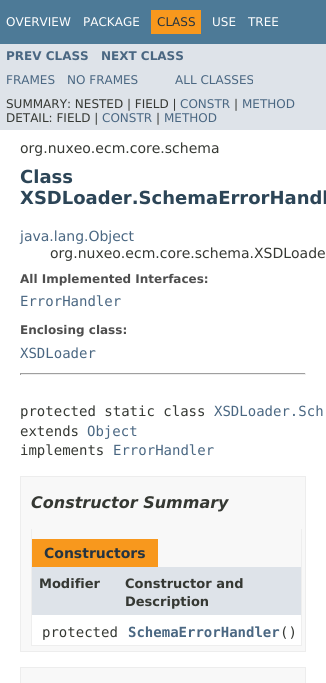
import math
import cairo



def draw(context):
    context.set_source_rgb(1, 1, 1)
    context.paint()
    context.set_source_rgb(77 / 255, 122 / 255, 151 / 255)
    context.rectangle(0, 0, 326, 44)
    context.fill()
    context.set_source_rgb(248 / 255, 152 / 255, 29 / 255)
    context.rectangle(151, 10, 50, 24)
    context.fill()
    context.set_source_rgb(222 / 255, 227 / 255, 233 / 255)
    context.rectangle(0, 44, 326, 86)
    context.fill()
    context.set_source_rgb(159 / 255, 159 / 255, 159 / 255)
    context.rectangle(20, 373, 286, 1)
    context.fill()
    context.set_source_rgb(238 / 255, 238 / 255, 238 / 255)
    context.rectangle(305, 373, 1, 2)
    context.fill()
    context.rectangle(20, 374, 286, 1)
    context.fill()
    context.set_source_rgb(159 / 255, 159 / 255, 159 / 255)
    context.rectangle(20, 373, 1, 2)
    context.fill()
    context.set_source_rgb(248 / 255, 248 / 255, 248 / 255)
    context.rectangle(20.5, 476.5, 285, 175)
    context.fill_preserve()
    context.set_source_rgb(237 / 255, 237 / 255, 237 / 255)
    context.set_line_width(1)
    context.stroke()
    context.set_source_rgb(238 / 255, 238 / 255, 238 / 255)
    context.rectangle(301, 529, 1, 117)
    context.fill()
    context.rectangle(31, 645, 271, 1)
    context.fill()
    context.rectangle(31, 529, 1, 117)
    context.fill()
    context.set_source_rgb(248 / 255, 152 / 255, 29 / 255)
    context.rectangle(32, 539, 126, 28)
    context.fill()
    context.set_source_rgb(222 / 255, 227 / 255, 233 / 255)
    context.rectangle(32, 567, 269, 48)
    context.fill()
    context.set_source_rgb(1, 1, 1)
    context.rectangle(32, 615, 269, 30)
    context.fill()
    context.set_source_rgb(248 / 255, 248 / 255, 248 / 255)
    context.rectangle(20.5, 667.5, 285, 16)
    context.fill_preserve()
    context.set_source_rgb(237 / 255, 237 / 255, 237 / 255)
    context.stroke()
    context.select_font_face("DejaVu Sans")
    context.set_font_size(12)
    context.set_source_rgb(1, 1, 1)
    context.move_to(6, 26)
    context.show_text("OVERVIEW")
    context.move_to(83, 26)
    context.show_text("PACKAGE")
    context.set_source_rgb(37 / 255, 52 / 255, 65 / 255)
    context.move_to(157, 26)
    context.show_text("CLASS")
    context.set_source_rgb(1, 1, 1)
    context.move_to(212, 26)
    context.show_text("USE")
    context.move_to(248, 26)
    context.show_text("TREE")
    context.select_font_face("DejaVu Sans", cairo.FontSlant.NORMAL, cairo.FontWeight.BOLD)
    context.set_source_rgb(74 / 255, 103 / 255, 130 / 255)
    context.move_to(6, 60)
    context.show_text("PREV CLASS")
    context.move_to(101, 60)
    context.show_text("NEXT CLASS")
    context.select_font_face("DejaVu Sans")
    context.move_to(6, 84)
    context.show_text("FRAMES")
    context.move_to(67, 84)
    context.show_text("NO FRAMES")
    context.move_to(175, 84)
    context.show_text("ALL CLASSES")
    context.set_source_rgb(53 / 255, 56 / 255, 51 / 255)
    context.move_to(6, 108)
    context.show_text("SUMMARY: NESTED | FIELD |")
    context.set_source_rgb(74 / 255, 103 / 255, 130 / 255)
    context.move_to(180, 108)
    context.show_text("CONSTR")
    context.set_source_rgb(53 / 255, 56 / 255, 51 / 255)
    context.move_to(234, 108)
    context.show_text("|")
    context.set_source_rgb(74 / 255, 103 / 255, 130 / 255)
    context.move_to(242, 108)
    context.show_text("METHOD")
    context.set_source_rgb(53 / 255, 56 / 255, 51 / 255)
    context.move_to(6, 122)
    context.show_text("DETAIL: FIELD |")
    context.set_source_rgb(74 / 255, 103 / 255, 130 / 255)
    context.move_to(102, 122)
    context.show_text("CONSTR")
    context.set_source_rgb(53 / 255, 56 / 255, 51 / 255)
    context.move_to(156, 122)
    context.show_text("|")
    context.set_source_rgb(74 / 255, 103 / 255, 130 / 255)
    context.move_to(164, 122)
    context.show_text("METHOD")
    context.set_font_size(14)
    context.set_source_rgb(53 / 255, 56 / 255, 51 / 255)
    context.move_to(20, 153)
    context.show_text("org.nuxeo.ecm.core.schema")
    context.select_font_face("DejaVu Sans", cairo.FontSlant.NORMAL, cairo.FontWeight.BOLD)
    context.set_font_size(18)
    context.set_source_rgb(44 / 255, 69 / 255, 87 / 255)
    context.move_to(20, 183)
    context.show_text("Class")
    context.move_to(20, 204)
    context.show_text("XSDLoader.SchemaErrorHandl")
    context.select_font_face("DejaVu Sans")
    context.set_font_size(14)
    context.set_source_rgb(74 / 255, 103 / 255, 130 / 255)
    context.move_to(20, 241)
    context.show_text("java.lang.Object")
    context.set_source_rgb(53 / 255, 56 / 255, 51 / 255)
    context.move_to(50, 258)
    context.show_text("org.nuxeo.ecm.core.schema.XSDLoade")
    context.select_font_face("DejaVu Sans", cairo.FontSlant.NORMAL, cairo.FontWeight.BOLD)
    context.set_font_size(12)
    context.set_source_rgb(78 / 255, 78 / 255, 78 / 255)
    context.move_to(20, 283)
    context.show_text("All Implemented Interfaces:")
    context.select_font_face("DejaVu Sans Mono")
    context.set_font_size(14)
    context.set_source_rgb(74 / 255, 103 / 255, 130 / 255)
    context.move_to(20, 306)
    context.show_text("ErrorHandler")
    context.select_font_face("DejaVu Sans", cairo.FontSlant.NORMAL, cairo.FontWeight.BOLD)
    context.set_font_size(12)
    context.set_source_rgb(78 / 255, 78 / 255, 78 / 255)
    context.move_to(20, 334)
    context.show_text("Enclosing class:")
    context.select_font_face("DejaVu Sans Mono")
    context.set_font_size(14)
    context.set_source_rgb(74 / 255, 103 / 255, 130 / 255)
    context.move_to(20, 358)
    context.show_text("XSDLoader")
    context.set_source_rgb(53 / 255, 56 / 255, 51 / 255)
    context.move_to(20, 416)
    context.show_text("protected static class")
    context.set_source_rgb(74 / 255, 103 / 255, 130 / 255)
    context.move_to(214, 416)
    context.show_text("XSDLoader.Sch")
    context.set_source_rgb(53 / 255, 56 / 255, 51 / 255)
    context.move_to(20, 436)
    context.show_text("extends")
    context.set_source_rgb(74 / 255, 103 / 255, 130 / 255)
    context.move_to(87, 436)
    context.show_text("Object")
    context.set_source_rgb(53 / 255, 56 / 255, 51 / 255)
    context.move_to(20, 455)
    context.show_text("implements")
    context.set_source_rgb(74 / 255, 103 / 255, 130 / 255)
    context.move_to(113, 455)
    context.show_text("ErrorHandler")
    context.select_font_face("DejaVu Sans", cairo.FontSlant.ITALIC, cairo.FontWeight.BOLD)
    context.set_font_size(16)
    context.set_source_rgb(53 / 255, 56 / 255, 51 / 255)
    context.move_to(31, 508)
    context.show_text("Constructor Summary")
    context.select_font_face("DejaVu Sans", cairo.FontSlant.NORMAL, cairo.FontWeight.BOLD)
    context.set_font_size(14)
    context.set_source_rgb(37 / 255, 52 / 255, 65 / 255)
    context.move_to(44, 558)
    context.show_text("Constructors")
    context.set_font_size(13)
    context.set_source_rgb(53 / 255, 56 / 255, 51 / 255)
    context.move_to(39, 588)
    context.show_text("Modifier")
    context.move_to(125, 588)
    context.show_text("Constructor and")
    context.move_to(125, 606)
    context.show_text("Description")
    context.select_font_face("DejaVu Sans Mono")
    context.set_font_size(14)
    context.move_to(42, 637)
    context.show_text("protected")
    context.select_font_face("DejaVu Sans Mono", cairo.FontSlant.NORMAL, cairo.FontWeight.BOLD)
    context.set_source_rgb(74 / 255, 103 / 255, 130 / 255)
    context.move_to(128, 637)
    context.show_text("SchemaErrorHandler")
    context.select_font_face("DejaVu Sans Mono")
    context.set_source_rgb(53 / 255, 56 / 255, 51 / 255)
    context.move_to(280, 637)
    context.show_text("()")


surface = cairo.ImageSurface(cairo.Format.RGB24, 326, 683)
context = cairo.Context(surface)
options = cairo.FontOptions()
options.set_hint_metrics(cairo.HintMetrics.OFF)
options.set_hint_style(cairo.HintStyle.NONE)
context.set_font_options(options)
context.set_miter_limit(4)
draw(context)
surface.write_to_png("out.png")
